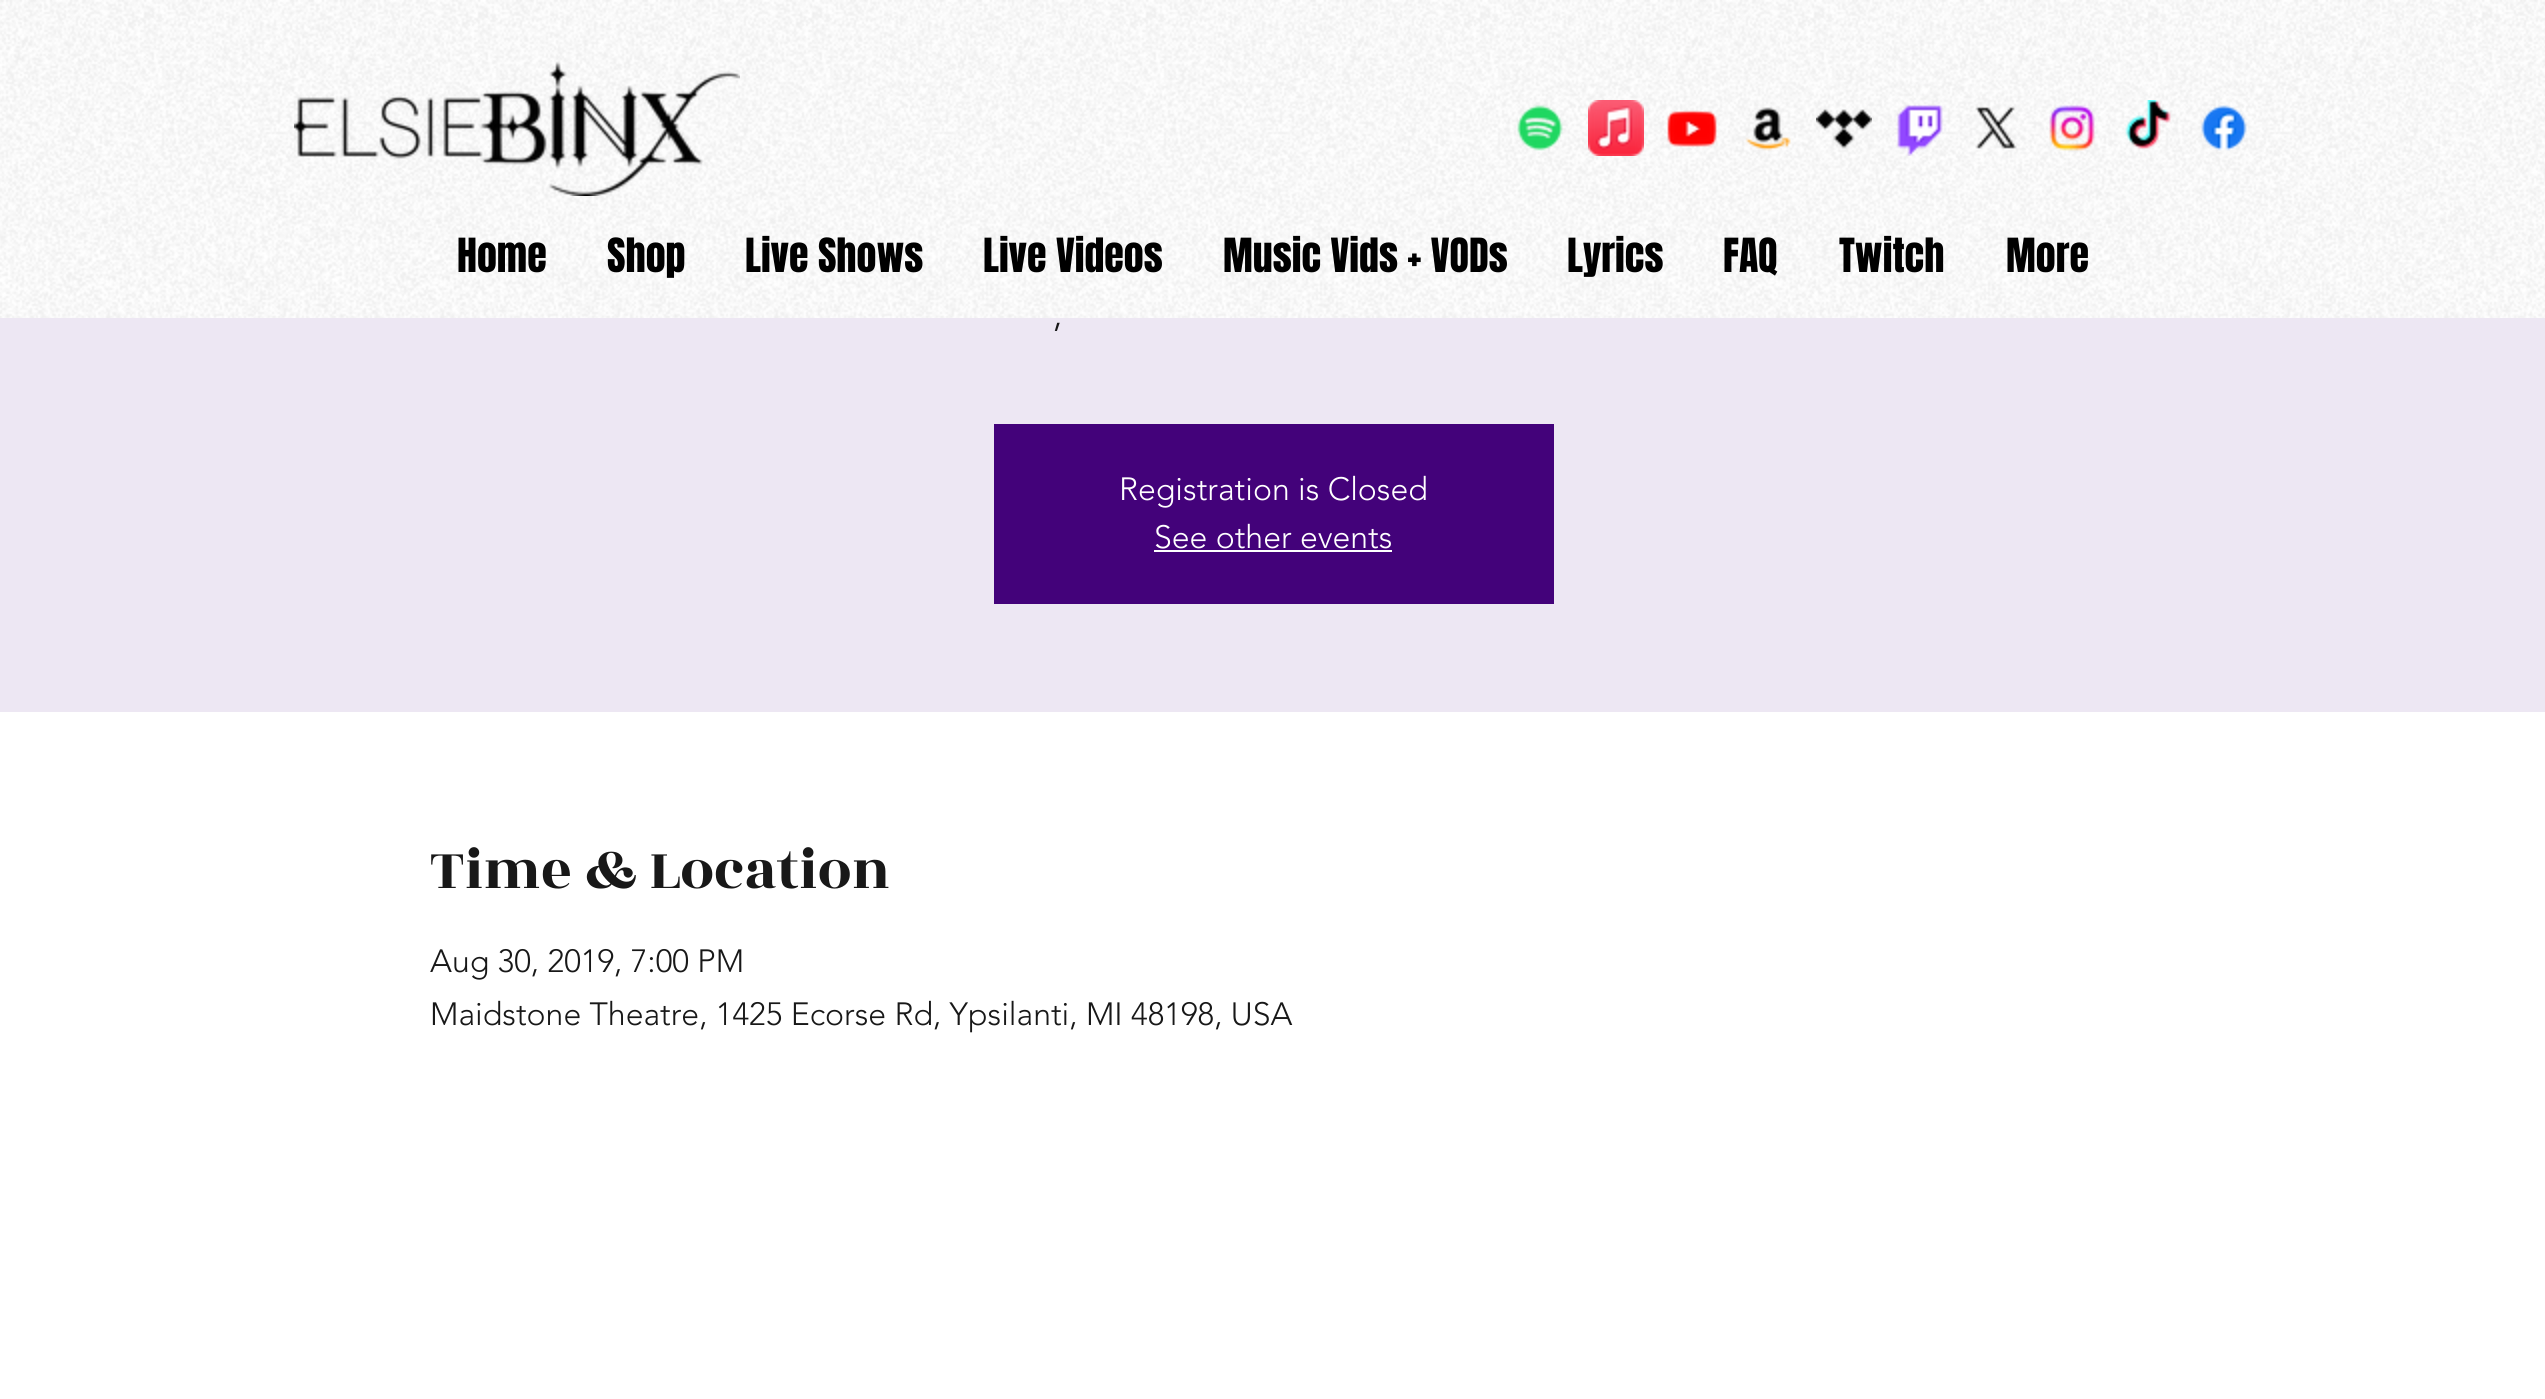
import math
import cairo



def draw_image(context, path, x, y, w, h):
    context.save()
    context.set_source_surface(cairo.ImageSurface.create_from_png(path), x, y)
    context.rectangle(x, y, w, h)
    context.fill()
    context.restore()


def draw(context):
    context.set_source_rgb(1, 1, 1)
    context.paint()
    draw_image(context, "images/1.png", 0, 0, 2545, 318)
    draw_image(context, "images/2.png", 294, 61, 446, 135)
    draw_image(context, "images/3.png", 1517, 105, 46, 46)
    draw_image(context, "images/4.png", 1588, 100, 56, 56)
    draw_image(context, "images/5.png", 1667, 110, 50, 37)
    draw_image(context, "images/6.png", 1745, 107, 46, 44)
    draw_image(context, "images/7.png", 1816, 109, 56, 40)
    draw_image(context, "images/8.png", 1897, 105, 46, 51)
    draw_image(context, "images/9.png", 1975, 106, 42, 43)
    draw_image(context, "images/10.png", 2049, 105, 46, 46)
    draw_image(context, "images/11.png", 2125, 100, 46, 49)
    draw_image(context, "images/12.png", 2201, 105, 46, 46)
    context.set_source_rgb(237 / 255, 231 / 255, 243 / 255)
    context.rectangle(0, 318, 2545, 394)
    context.fill()
    context.set_source_rgb(67 / 255, 2 / 255, 122 / 255)
    context.rectangle(994, 424, 560, 180)
    context.fill()
    context.set_source_rgb(1, 1, 1)
    context.rectangle(1154, 550, 238, 2)
    context.fill()
    context.select_font_face("Anton")
    context.set_font_size(40)
    context.set_source_rgb(0, 0, 0)
    context.move_to(457, 272)
    context.show_text("Home")
    context.move_to(607, 272)
    context.show_text("Shop")
    context.move_to(745, 272)
    context.show_text("Live Shows")
    context.move_to(983, 272)
    context.show_text("Live Videos")
    context.move_to(1223, 272)
    context.show_text("Music Vids + VODs")
    context.move_to(1567, 272)
    context.show_text("Lyrics")
    context.move_to(1723, 272)
    context.show_text("FAQ")
    context.move_to(1839, 272)
    context.show_text("Twitch")
    context.move_to(2006, 272)
    context.show_text("More")
    context.select_font_face("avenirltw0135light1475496 Light")
    context.set_font_size(36)
    context.set_source_rgb(24 / 255, 24 / 255, 24 / 255)
    context.move_to(1053, 326)
    context.show_text(",")
    context.set_font_size(32)
    context.set_source_rgb(1, 1, 1)
    context.move_to(1119, 500)
    context.show_text("Registration is Closed")
    context.move_to(1154, 548)
    context.show_text("See other events")
    context.select_font_face("Rozha One")
    context.set_font_size(60)
    context.set_source_rgb(24 / 255, 24 / 255, 24 / 255)
    context.move_to(430, 888)
    context.show_text("Time & Location")
    context.select_font_face("avenirltw0135light1475496 Light")
    context.set_font_size(32)
    context.move_to(430, 972)
    context.show_text("Aug 30, 2019, 7:00 PM")
    context.move_to(430, 1025)
    context.show_text("Maidstone Theatre, 1425 Ecorse Rd, Ypsilanti, MI 48198, USA")


surface = cairo.ImageSurface(cairo.Format.RGB24, 2545, 1399)
context = cairo.Context(surface)
options = cairo.FontOptions()
options.set_hint_metrics(cairo.HintMetrics.OFF)
options.set_hint_style(cairo.HintStyle.NONE)
context.set_font_options(options)
context.set_miter_limit(4)
draw(context)
surface.write_to_png("out.png")
